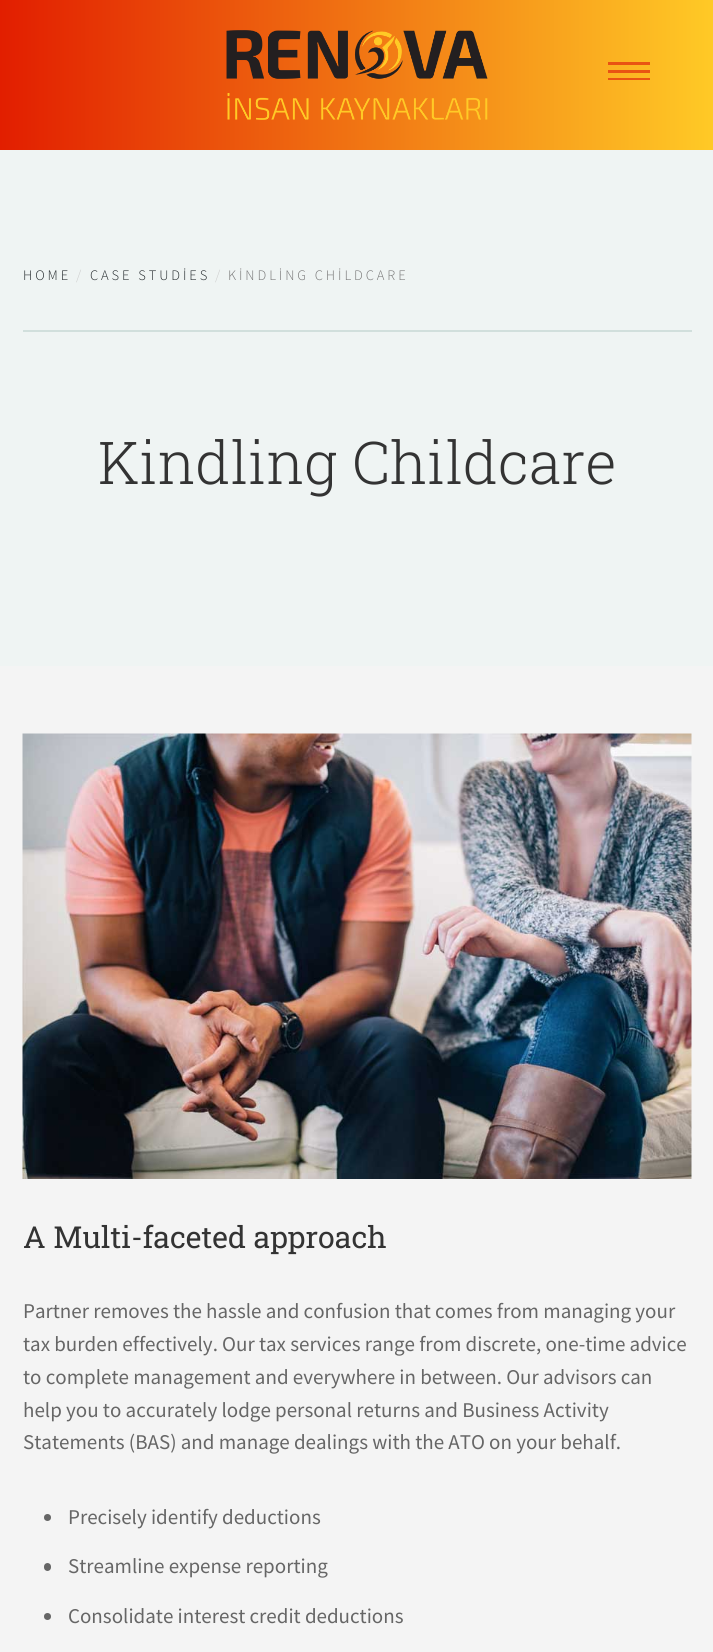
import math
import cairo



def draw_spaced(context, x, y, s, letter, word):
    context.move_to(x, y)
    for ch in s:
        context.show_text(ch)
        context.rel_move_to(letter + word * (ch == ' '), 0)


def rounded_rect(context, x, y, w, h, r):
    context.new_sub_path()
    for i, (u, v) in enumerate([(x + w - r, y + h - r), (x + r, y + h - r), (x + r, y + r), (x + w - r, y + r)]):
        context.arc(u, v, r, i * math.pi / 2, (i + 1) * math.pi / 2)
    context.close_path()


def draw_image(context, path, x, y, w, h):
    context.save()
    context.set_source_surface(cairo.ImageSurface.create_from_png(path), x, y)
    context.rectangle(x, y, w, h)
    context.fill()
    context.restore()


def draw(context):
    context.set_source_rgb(244 / 255, 244 / 255, 244 / 255)
    context.paint()
    gradient = cairo.LinearGradient(0, 75, 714, 75)
    gradient.add_color_stop_rgba(0, 226 / 255, 30 / 255, 0, 1)
    gradient.add_color_stop_rgba(1, 1, 202 / 255, 38 / 255, 1)
    context.set_source(gradient)
    context.rectangle(0, 0, 713, 150)
    context.fill()
    draw_image(context, "images/1.png", 226, 30, 262, 90)
    context.set_source_rgba(226 / 255, 42 / 255, 13 / 255, 0.7)
    context.new_path()
    context.move_to(608, 65)
    context.line_to(608, 62)
    context.line_to(650, 62)
    context.line_to(650, 65)
    context.close_path()
    context.move_to(608, 73)
    context.line_to(608, 70)
    context.line_to(650, 70)
    context.line_to(650, 73)
    context.close_path()
    context.move_to(608, 80)
    context.line_to(608, 78)
    context.line_to(650, 78)
    context.line_to(650, 80)
    context.close_path()
    context.fill()
    context.set_source_rgb(239 / 255, 244 / 255, 243 / 255)
    context.rectangle(0, 150, 713, 516)
    context.fill()
    context.set_source_rgb(209 / 255, 223 / 255, 220 / 255)
    context.rectangle(23, 330, 669, 2)
    context.fill()
    draw_image(context, "images/2.png", 22, 733, 670, 446)
    context.set_source_rgb(102 / 255, 102 / 255, 102 / 255)
    context.arc(47.5, 1517.5, 3.5, 0, 2 * math.pi)
    context.fill()
    rounded_rect(context, 44, 1563, 7, 8, 3.5)
    context.fill()
    context.arc(47.5, 1616.5, 3.5, 0, 2 * math.pi)
    context.fill()
    context.select_font_face("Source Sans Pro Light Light")
    context.set_font_size(14.5)
    context.set_source_rgb(36 / 255, 42 / 255, 45 / 255)
    draw_spaced(context, 23, 280, "HOME", 2.9, 0)
    context.set_source_rgb(204 / 255, 204 / 255, 204 / 255)
    draw_spaced(context, 76, 280, "/", 2.9, 0)
    context.set_source_rgb(36 / 255, 42 / 255, 45 / 255)
    draw_spaced(context, 90, 280, "CASE STUDİES", 2.9, 0)
    context.set_source_rgb(204 / 255, 204 / 255, 204 / 255)
    draw_spaced(context, 215, 280, "/", 2.9, 0)
    context.set_source_rgb(119 / 255, 119 / 255, 119 / 255)
    draw_spaced(context, 228, 280, "KİNDLİNG CHİLDCARE", 2.9, 0)
    context.select_font_face("Roboto Slab Light")
    context.set_font_size(59)
    context.set_source_rgb(51 / 255, 51 / 255, 51 / 255)
    context.move_to(98, 484)
    context.show_text("Kindling Childcare")
    context.select_font_face("Roboto Slab")
    context.set_font_size(30.25)
    context.move_to(23, 1248)
    context.show_text("A Multi-faceted approach")
    context.select_font_face("Source Sans Pro")
    context.set_font_size(21)
    context.set_source_rgb(102 / 255, 102 / 255, 102 / 255)
    context.move_to(23, 1318)
    context.show_text("Partner removes the hassle and confusion that comes from managing your")
    context.move_to(23, 1351)
    context.show_text("tax burden effectively. Our tax services range from discrete, one-time advice")
    context.move_to(23, 1384)
    context.show_text("to complete management and everywhere in between. Our advisors can")
    context.move_to(23, 1417)
    context.show_text("help you to accurately lodge personal returns and Business Activity")
    context.move_to(23, 1449)
    context.show_text("Statements (BAS) and manage dealings with the ATO on your behalf.")
    context.move_to(68, 1524)
    context.show_text("Precisely identify deductions")
    context.move_to(68, 1573)
    context.show_text("Streamline expense reporting")
    context.move_to(68, 1623)
    context.show_text("Consolidate interest credit deductions")


surface = cairo.ImageSurface(cairo.Format.RGB24, 713, 1652)
context = cairo.Context(surface)
options = cairo.FontOptions()
options.set_hint_metrics(cairo.HintMetrics.OFF)
options.set_hint_style(cairo.HintStyle.NONE)
context.set_font_options(options)
context.set_miter_limit(4)
draw(context)
surface.write_to_png("out.png")
